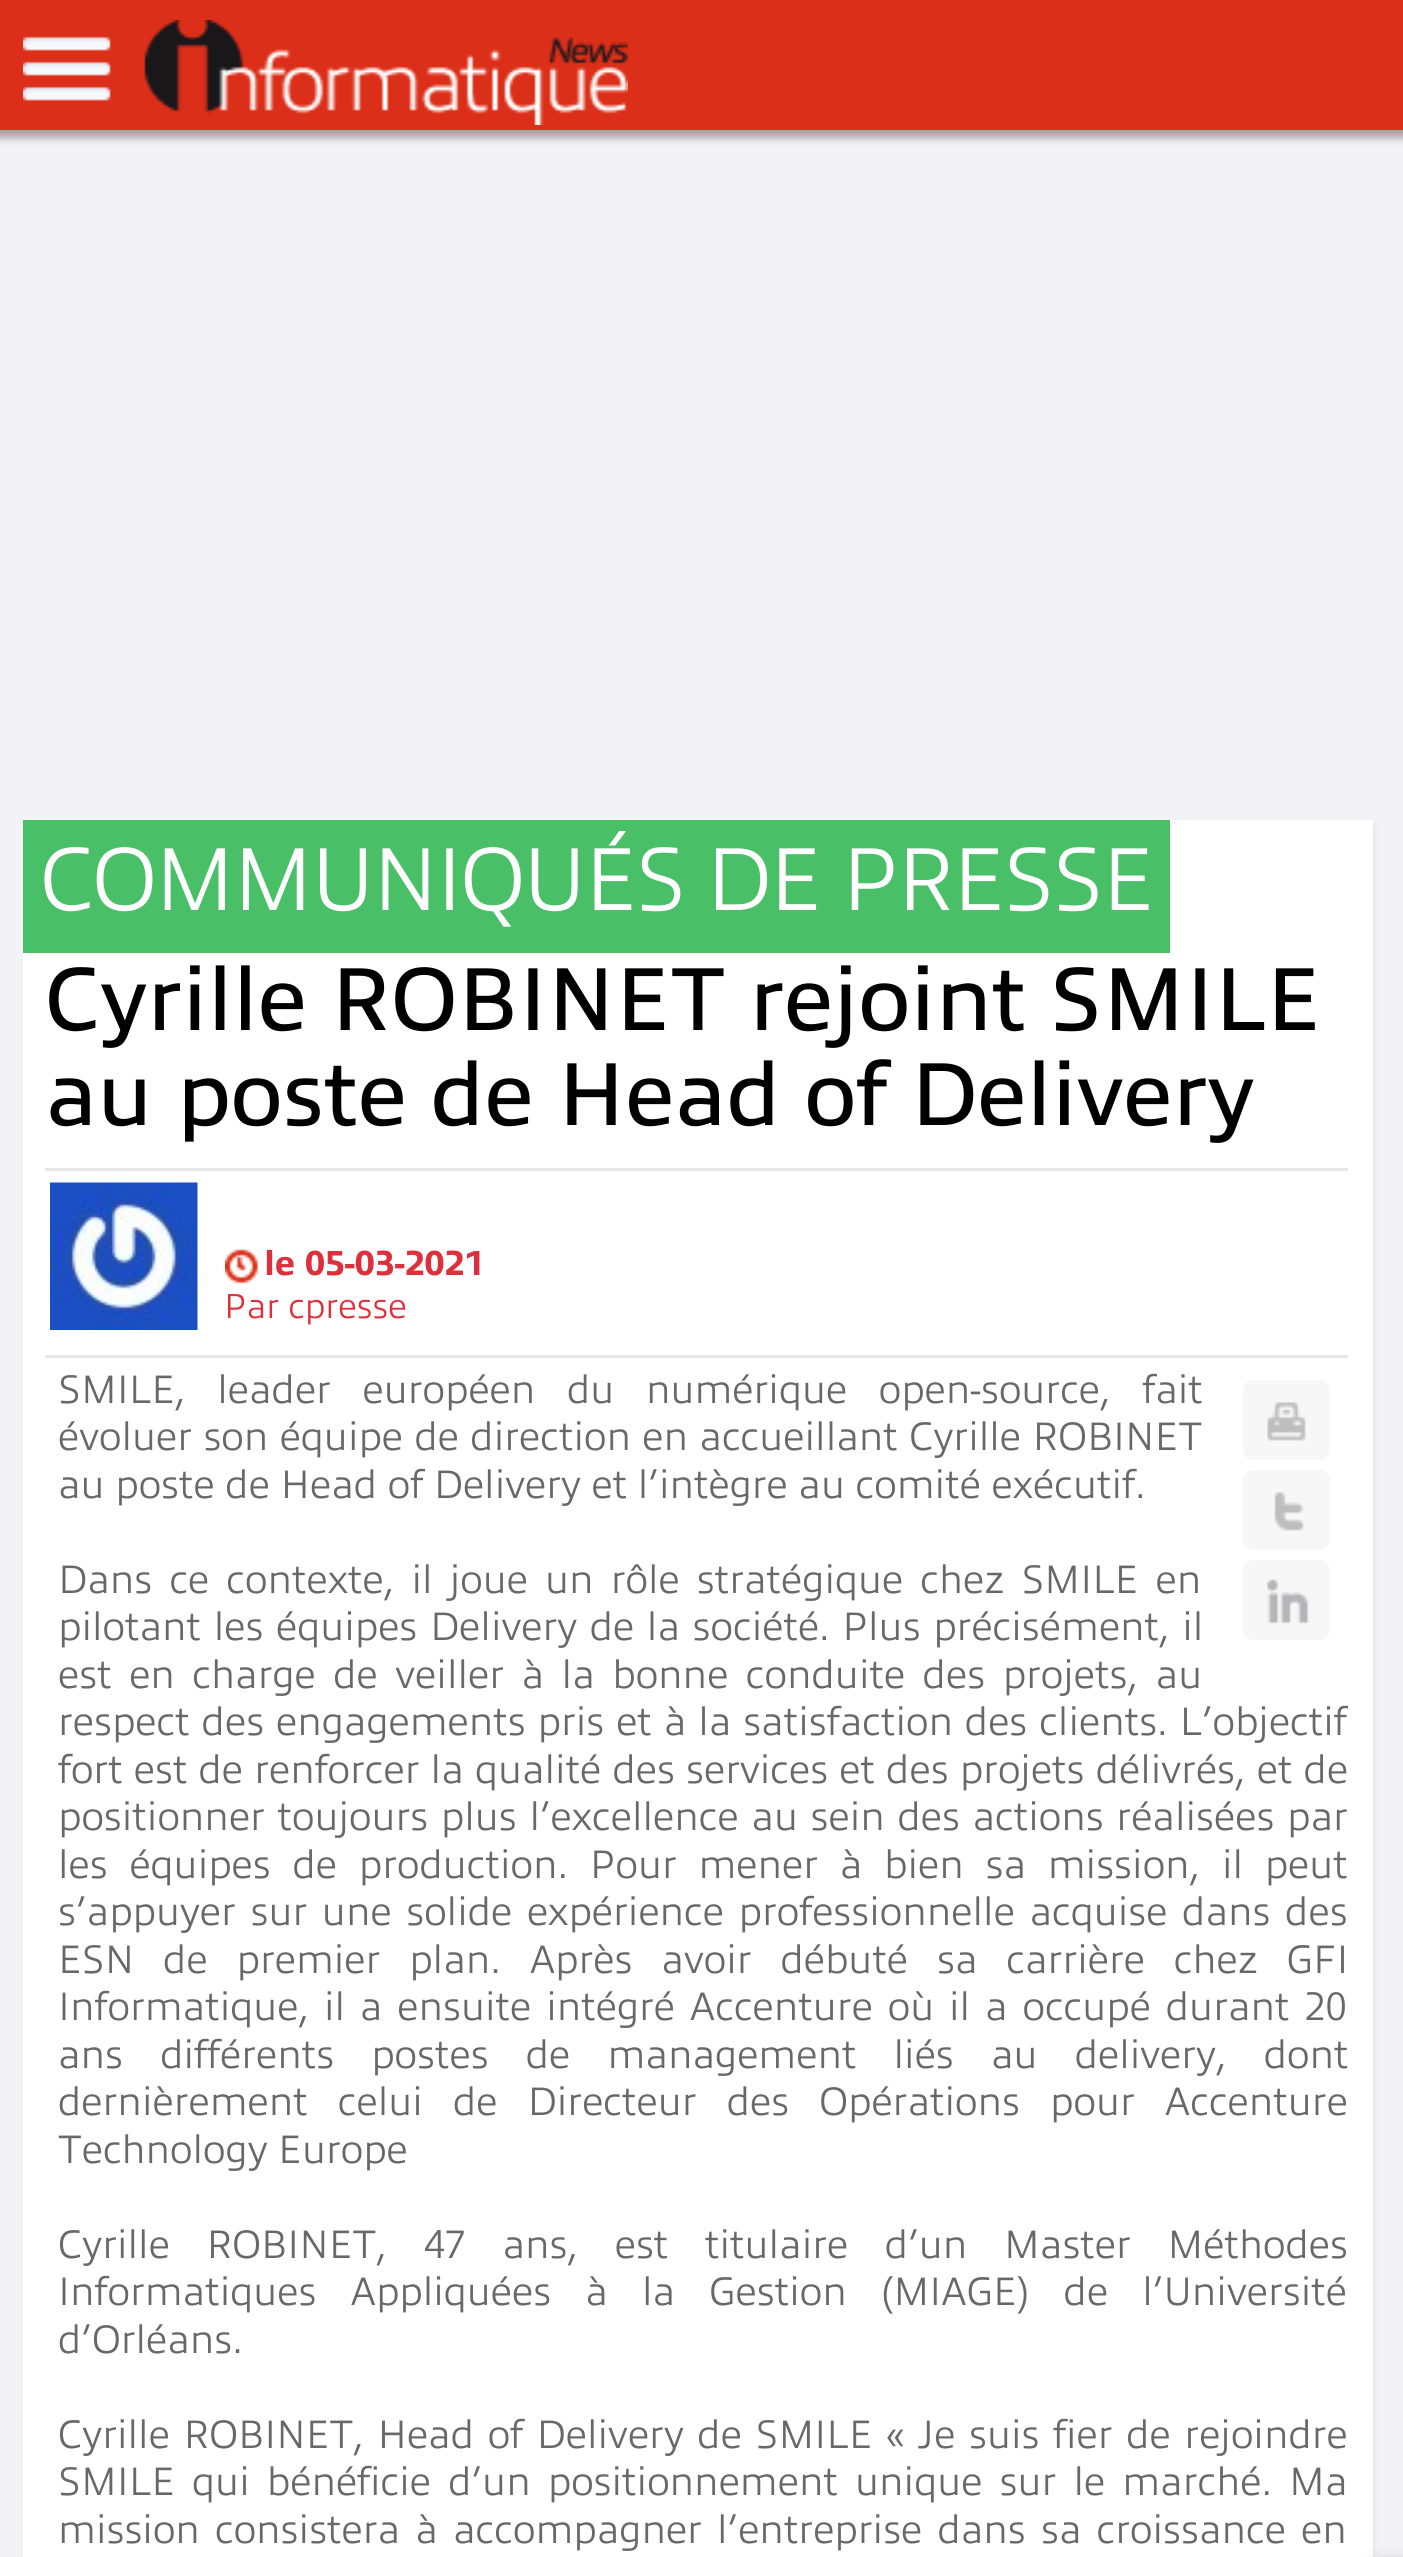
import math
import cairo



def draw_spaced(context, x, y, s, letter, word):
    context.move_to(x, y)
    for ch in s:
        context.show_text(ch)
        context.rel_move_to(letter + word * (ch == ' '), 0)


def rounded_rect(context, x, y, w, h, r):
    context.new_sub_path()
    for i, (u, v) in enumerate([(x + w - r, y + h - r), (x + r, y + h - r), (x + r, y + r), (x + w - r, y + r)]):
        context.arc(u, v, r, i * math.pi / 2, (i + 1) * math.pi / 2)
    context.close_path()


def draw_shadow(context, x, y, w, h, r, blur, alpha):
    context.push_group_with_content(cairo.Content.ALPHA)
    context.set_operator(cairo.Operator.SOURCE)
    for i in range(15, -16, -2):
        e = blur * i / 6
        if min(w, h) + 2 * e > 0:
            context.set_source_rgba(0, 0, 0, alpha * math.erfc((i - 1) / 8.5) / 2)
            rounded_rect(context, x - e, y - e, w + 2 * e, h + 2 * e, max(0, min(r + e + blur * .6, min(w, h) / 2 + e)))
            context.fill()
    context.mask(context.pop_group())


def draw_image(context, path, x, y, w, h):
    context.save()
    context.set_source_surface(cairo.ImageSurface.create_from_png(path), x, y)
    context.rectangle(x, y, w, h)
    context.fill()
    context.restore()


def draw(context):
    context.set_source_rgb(243 / 255, 242 / 255, 246 / 255)
    context.paint()
    context.set_source_rgb(163 / 255, 163 / 255, 164 / 255)
    draw_shadow(context, -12, -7, 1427, 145, 0, 4, 1)
    context.set_source_rgb(219 / 255, 47 / 255, 25 / 255)
    context.rectangle(0, 0, 1403, 130)
    context.fill()
    draw_image(context, "images/1.png", 23, 36, 88, 65)
    draw_image(context, "images/2.png", 144, 20, 484, 105)
    context.set_source_rgb(0, 0, 0)
    draw_shadow(context, 25, 825, 1350, 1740, 0, 2.5, 0.06)
    context.set_source_rgb(1, 1, 1)
    context.rectangle(23, 820, 1350, 1737)
    context.fill()
    context.set_source_rgb(73 / 255, 191 / 255, 104 / 255)
    context.rectangle(23, 820, 1147, 133)
    context.fill()
    context.set_source_rgb(231 / 255, 231 / 255, 233 / 255)
    context.rectangle(45, 1168, 1303, 3)
    context.fill()
    context.rectangle(45, 1355, 1303, 3)
    context.fill()
    draw_image(context, "images/3.png", 50, 1182, 148, 148)
    draw_image(context, "images/4.png", 225, 1249, 34, 35)
    context.set_source_rgb(247 / 255, 247 / 255, 247 / 255)
    rounded_rect(context, 1243, 1380, 87, 80, 10)
    context.fill()
    draw_image(context, "images/5.png", 1267, 1402, 39, 39)
    rounded_rect(context, 1243, 1470, 87, 80, 10)
    context.fill()
    draw_image(context, "images/6.png", 1274, 1492, 31, 39)
    rounded_rect(context, 1243, 1560, 87, 80, 10)
    context.fill()
    draw_image(context, "images/7.png", 1267, 1579, 42, 45)
    context.set_source_rgb(102 / 255, 102 / 255, 102 / 255)
    draw_shadow(context, 1380, 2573, 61, 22, 0, 12.5, 1)
    context.select_font_face("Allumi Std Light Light")
    context.set_font_size(90)
    context.set_source_rgb(1, 1, 1)
    draw_spaced(context, 40, 910, "COMMUNIQUÉS DE PRESSE", -2.5, 0)
    context.select_font_face("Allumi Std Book")
    context.set_source_rgb(0, 0, 0)
    context.move_to(45, 1030)
    context.show_text("Cyrille ROBINET rejoint SMILE")
    context.move_to(45, 1125)
    context.show_text("au poste de Head of Delivery")
    context.select_font_face("Allumi Std Book ExtraBold")
    context.set_font_size(35)
    context.set_source_rgb(222 / 255, 48 / 255, 60 / 255)
    context.move_to(264, 1275)
    context.show_text("le 05-03-2021")
    context.select_font_face("Allumi Std Light Light")
    context.move_to(224, 1318)
    context.show_text("Par cpresse")
    context.set_font_size(40)
    context.set_source_rgb(104 / 255, 104 / 255, 104 / 255)
    draw_spaced(context, 58, 1403, "SMILE, leader européen du numérique open-source, fait", 0, 21)
    draw_spaced(context, 58, 1450, "évoluer son équipe de direction en accueillant Cyrille ROBINET", 0, 0.75)
    context.move_to(58, 1498)
    context.show_text("au poste de Head of Delivery et l’intègre au comité exécutif.")
    draw_spaced(context, 58, 1593, "Dans ce contexte, il joue un rôle stratégique chez SMILE en", 0, 6.5)
    draw_spaced(context, 58, 1640, "pilotant les équipes Delivery de la société. Plus précisément, il", 0, 2)
    draw_spaced(context, 58, 1688, "est en charge de veiller à la bonne conduite des projets, au", 0, 6.9)
    context.save()
    context.rectangle(45, 1368, 1303, 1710)
    context.clip()
    draw_spaced(context, 58, 1735, "respect des engagements pris et à la satisfaction des clients. L’objectif", 0, 1.25)
    context.restore()
    draw_spaced(context, 58, 1783, "fort est de renforcer la qualité des services et des projets délivrés, et de", 0, 0.5)
    draw_spaced(context, 58, 1830, "positionner toujours plus l’excellence au sein des actions réalisées par", 0, 2)
    draw_spaced(context, 58, 1878, "les équipes de production. Pour mener à bien sa mission, il peut", 0, 11.1)
    draw_spaced(context, 58, 1925, "s’appuyer sur une solide expérience professionnelle acquise dans des", 0, 4)
    draw_spaced(context, 58, 1973, "ESN de premier plan. Après avoir débuté sa carrière chez GFI", 0, 18.25)
    draw_spaced(context, 58, 2020, "Informatique, il a ensuite intégré Accenture où il a occupé durant 20", 0, 4.25)
    draw_spaced(context, 58, 2068, "ans différents postes de management liés au delivery, dont", 0, 26.5)
    draw_spaced(context, 58, 2115, "dernièrement celui de Directeur des Opérations pour Accenture", 0, 19.5)
    context.move_to(58, 2163)
    context.show_text("Technology Europe")
    draw_spaced(context, 58, 2258, "Cyrille ROBINET, 47 ans, est titulaire d’un Master Méthodes", 0, 26)
    draw_spaced(context, 58, 2305, "Informatiques Appliquées à la Gestion (MIAGE) de l’Université", 0, 23.5)
    context.move_to(58, 2353)
    context.show_text("d’Orléans.")
    draw_spaced(context, 58, 2448, "Cyrille ROBINET, Head of Delivery de SMILE « Je suis fier de rejoindre", 0, 3)
    draw_spaced(context, 58, 2495, "SMILE qui bénéficie d’un positionnement unique sur le marché. Ma", 0, 6.5)
    draw_spaced(context, 58, 2543, "mission consistera à accompagner l’entreprise dans sa croissance en", 0, 4.5)


surface = cairo.ImageSurface(cairo.Format.RGB24, 1403, 2557)
context = cairo.Context(surface)
options = cairo.FontOptions()
options.set_hint_metrics(cairo.HintMetrics.OFF)
options.set_hint_style(cairo.HintStyle.NONE)
context.set_font_options(options)
context.set_miter_limit(4)
draw(context)
surface.write_to_png("out.png")
